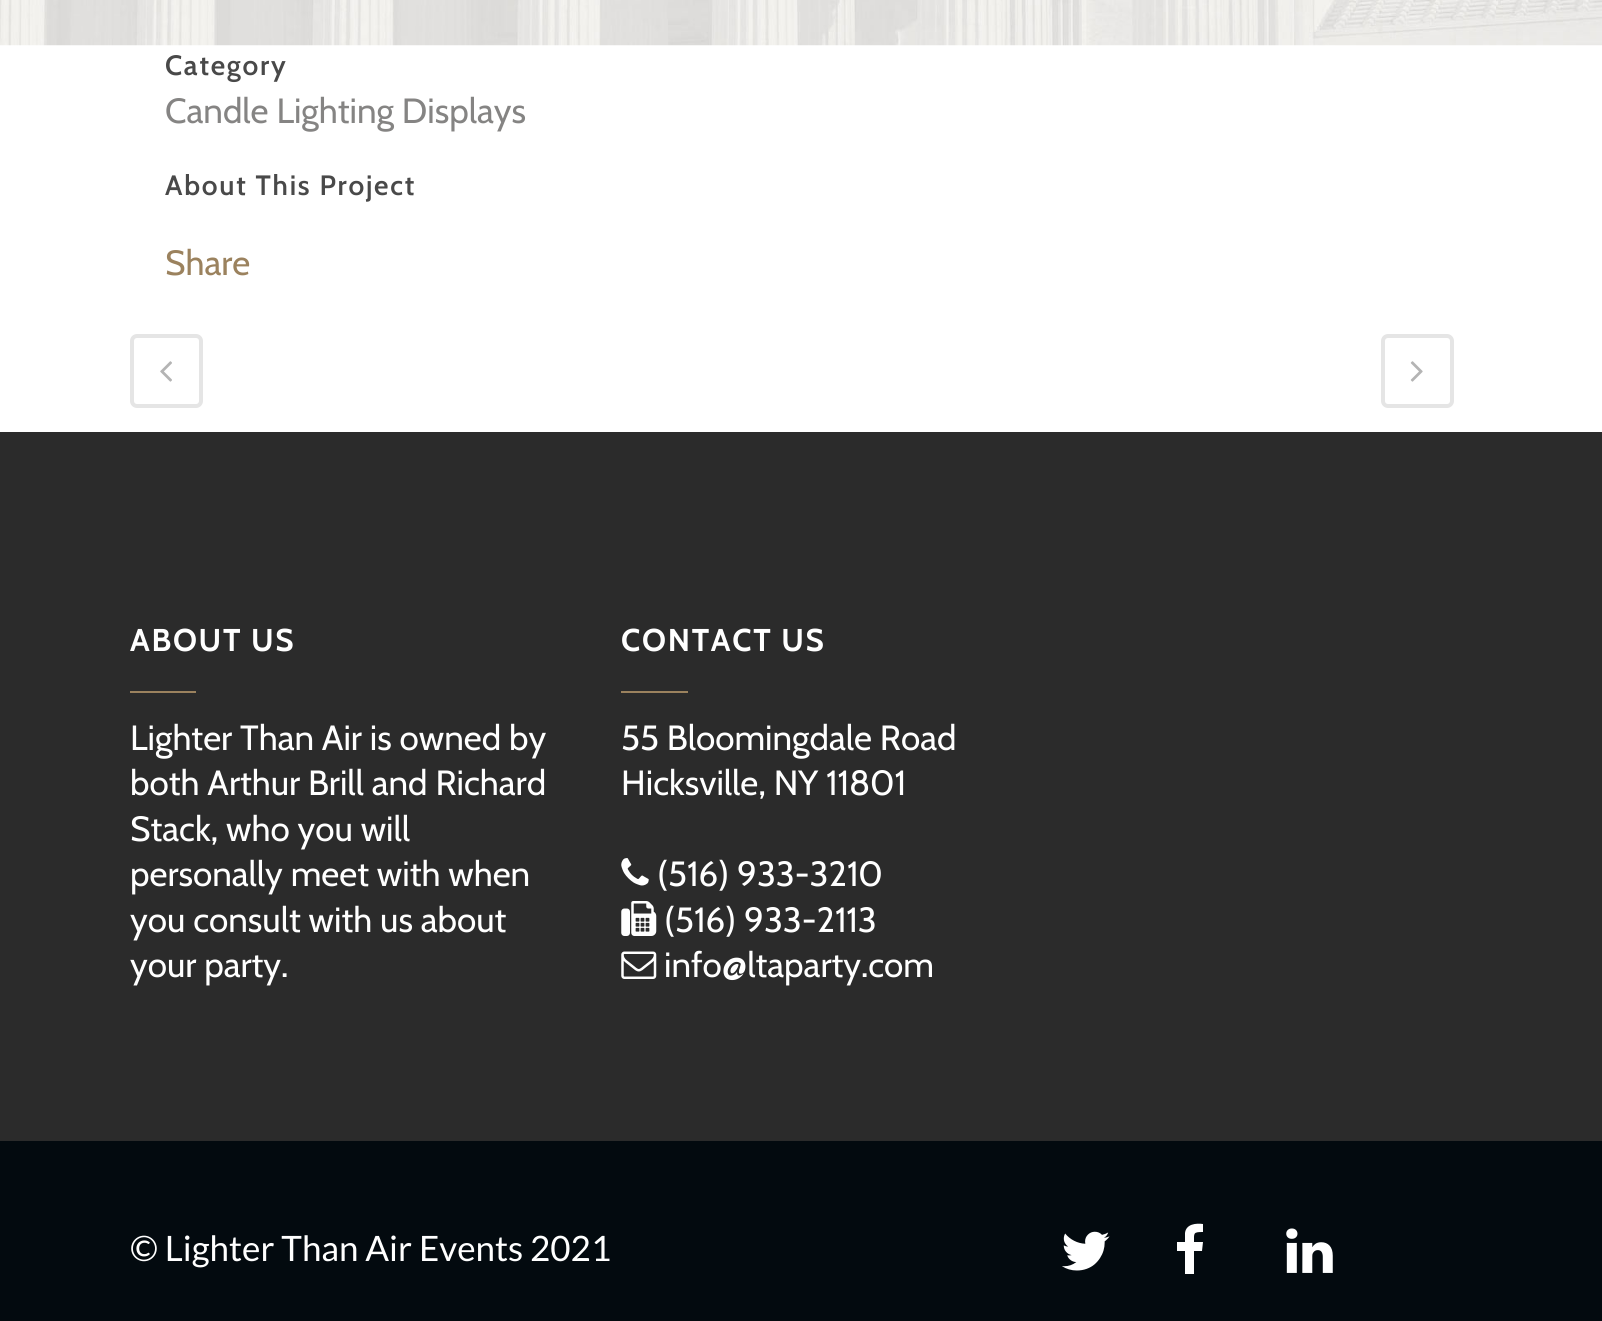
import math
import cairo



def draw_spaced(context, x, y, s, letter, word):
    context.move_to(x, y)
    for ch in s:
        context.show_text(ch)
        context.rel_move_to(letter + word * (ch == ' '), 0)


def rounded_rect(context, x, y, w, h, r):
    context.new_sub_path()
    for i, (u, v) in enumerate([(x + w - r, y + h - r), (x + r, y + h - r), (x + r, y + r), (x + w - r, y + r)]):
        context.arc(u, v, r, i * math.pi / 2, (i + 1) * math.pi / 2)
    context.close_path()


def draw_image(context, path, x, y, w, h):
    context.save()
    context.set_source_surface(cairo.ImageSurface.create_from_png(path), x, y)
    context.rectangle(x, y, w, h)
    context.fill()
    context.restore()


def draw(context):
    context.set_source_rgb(1, 1, 1)
    context.paint()
    draw_image(context, "images/1.png", 0, 0, 1602, 46)
    rounded_rect(context, 132, 336, 69, 70, 5)
    context.set_source_rgb(229 / 255, 229 / 255, 229 / 255)
    context.set_line_width(4)
    context.stroke()
    draw_image(context, "images/2.png", 160, 361, 12, 21)
    rounded_rect(context, 1383, 336, 69, 70, 5)
    context.stroke()
    draw_image(context, "images/3.png", 1410, 361, 13, 21)
    context.set_source_rgb(43 / 255, 43 / 255, 43 / 255)
    context.rectangle(0, 432, 1602, 709)
    context.fill()
    context.set_source_rgb(155 / 255, 130 / 255, 94 / 255)
    context.rectangle(130, 691, 66, 2)
    context.fill()
    context.rectangle(621, 691, 67, 2)
    context.fill()
    draw_image(context, "images/4.png", 621, 858, 28, 28)
    draw_image(context, "images/5.png", 621, 901, 36, 35)
    draw_image(context, "images/6.png", 621, 951, 36, 28)
    context.set_source_rgb(3 / 255, 10 / 255, 15 / 255)
    context.rectangle(0, 1141, 1602, 180)
    context.fill()
    draw_image(context, "images/7.png", 1062, 1231, 48, 40)
    context.set_source_rgb(1, 1, 1)
    context.new_path()
    context.move_to(1203, 1224)
    context.line_to(1203, 1232)
    context.curve_to(1193, 1232, 1194, 1233, 1194, 1242)
    context.line_to(1203, 1242)
    context.line_to(1202, 1251)
    context.line_to(1194, 1251)
    context.line_to(1194, 1274)
    context.line_to(1185, 1274)
    context.line_to(1185, 1251)
    context.line_to(1177, 1251)
    context.line_to(1177, 1242)
    context.line_to(1185, 1242)
    context.line_to(1185, 1233)
    context.curve_to(1186, 1224, 1196, 1223, 1203, 1224)
    context.close_path()
    context.fill()
    draw_image(context, "images/8.png", 1286, 1228, 47, 45)
    context.select_font_face("Cabin SemiBold")
    context.set_font_size(28)
    context.set_source_rgb(73 / 255, 73 / 255, 73 / 255)
    draw_spaced(context, 165, 75, "Category", 1.75, 0)
    context.select_font_face("Cabin")
    context.set_font_size(35)
    context.set_source_rgb(133 / 255, 132 / 255, 131 / 255)
    context.move_to(165, 123)
    context.show_text("Candle Lighting Displays")
    context.select_font_face("Cabin SemiBold")
    context.set_font_size(28)
    context.set_source_rgb(73 / 255, 73 / 255, 73 / 255)
    draw_spaced(context, 165, 195, "About This Project", 1.75, 0)
    context.select_font_face("Cabin")
    context.set_font_size(35)
    context.set_source_rgb(155 / 255, 130 / 255, 94 / 255)
    context.move_to(165, 275)
    context.show_text("Share")
    context.select_font_face("Cabin", cairo.FontSlant.NORMAL, cairo.FontWeight.BOLD)
    context.set_font_size(31.5)
    context.set_source_rgb(1, 1, 1)
    draw_spaced(context, 130, 651, "ABOUT US", 1.75, 0)
    context.select_font_face("Cabin")
    context.set_font_size(35)
    context.move_to(130, 750)
    context.show_text("Lighter Than Air is owned by")
    context.move_to(130, 795)
    context.show_text("both Arthur Brill and Richard")
    context.move_to(130, 841)
    context.show_text("Stack, who you will")
    context.move_to(130, 886)
    context.show_text("personally meet with when")
    context.move_to(130, 932)
    context.show_text("you consult with us about")
    context.move_to(130, 977)
    context.show_text("your party.")
    context.select_font_face("Cabin", cairo.FontSlant.NORMAL, cairo.FontWeight.BOLD)
    context.set_font_size(31.5)
    draw_spaced(context, 621, 651, "CONTACT US", 1.75, 0)
    context.select_font_face("Cabin")
    context.set_font_size(35)
    context.move_to(621, 750)
    context.show_text("55 Bloomingdale Road")
    context.move_to(621, 795)
    context.show_text("Hicksville, NY 11801")
    context.move_to(657, 886)
    context.show_text("(516) 933-3210")
    context.move_to(664, 932)
    context.show_text("(516) 933-2113")
    context.move_to(664, 977)
    context.show_text("info@ltaparty.com")
    context.select_font_face("Lato")
    context.move_to(130, 1261)
    context.show_text("© Lighter Than Air Events 2021")


surface = cairo.ImageSurface(cairo.Format.RGB24, 1602, 1321)
context = cairo.Context(surface)
options = cairo.FontOptions()
options.set_hint_metrics(cairo.HintMetrics.OFF)
options.set_hint_style(cairo.HintStyle.NONE)
context.set_font_options(options)
context.set_miter_limit(4)
draw(context)
surface.write_to_png("out.png")
